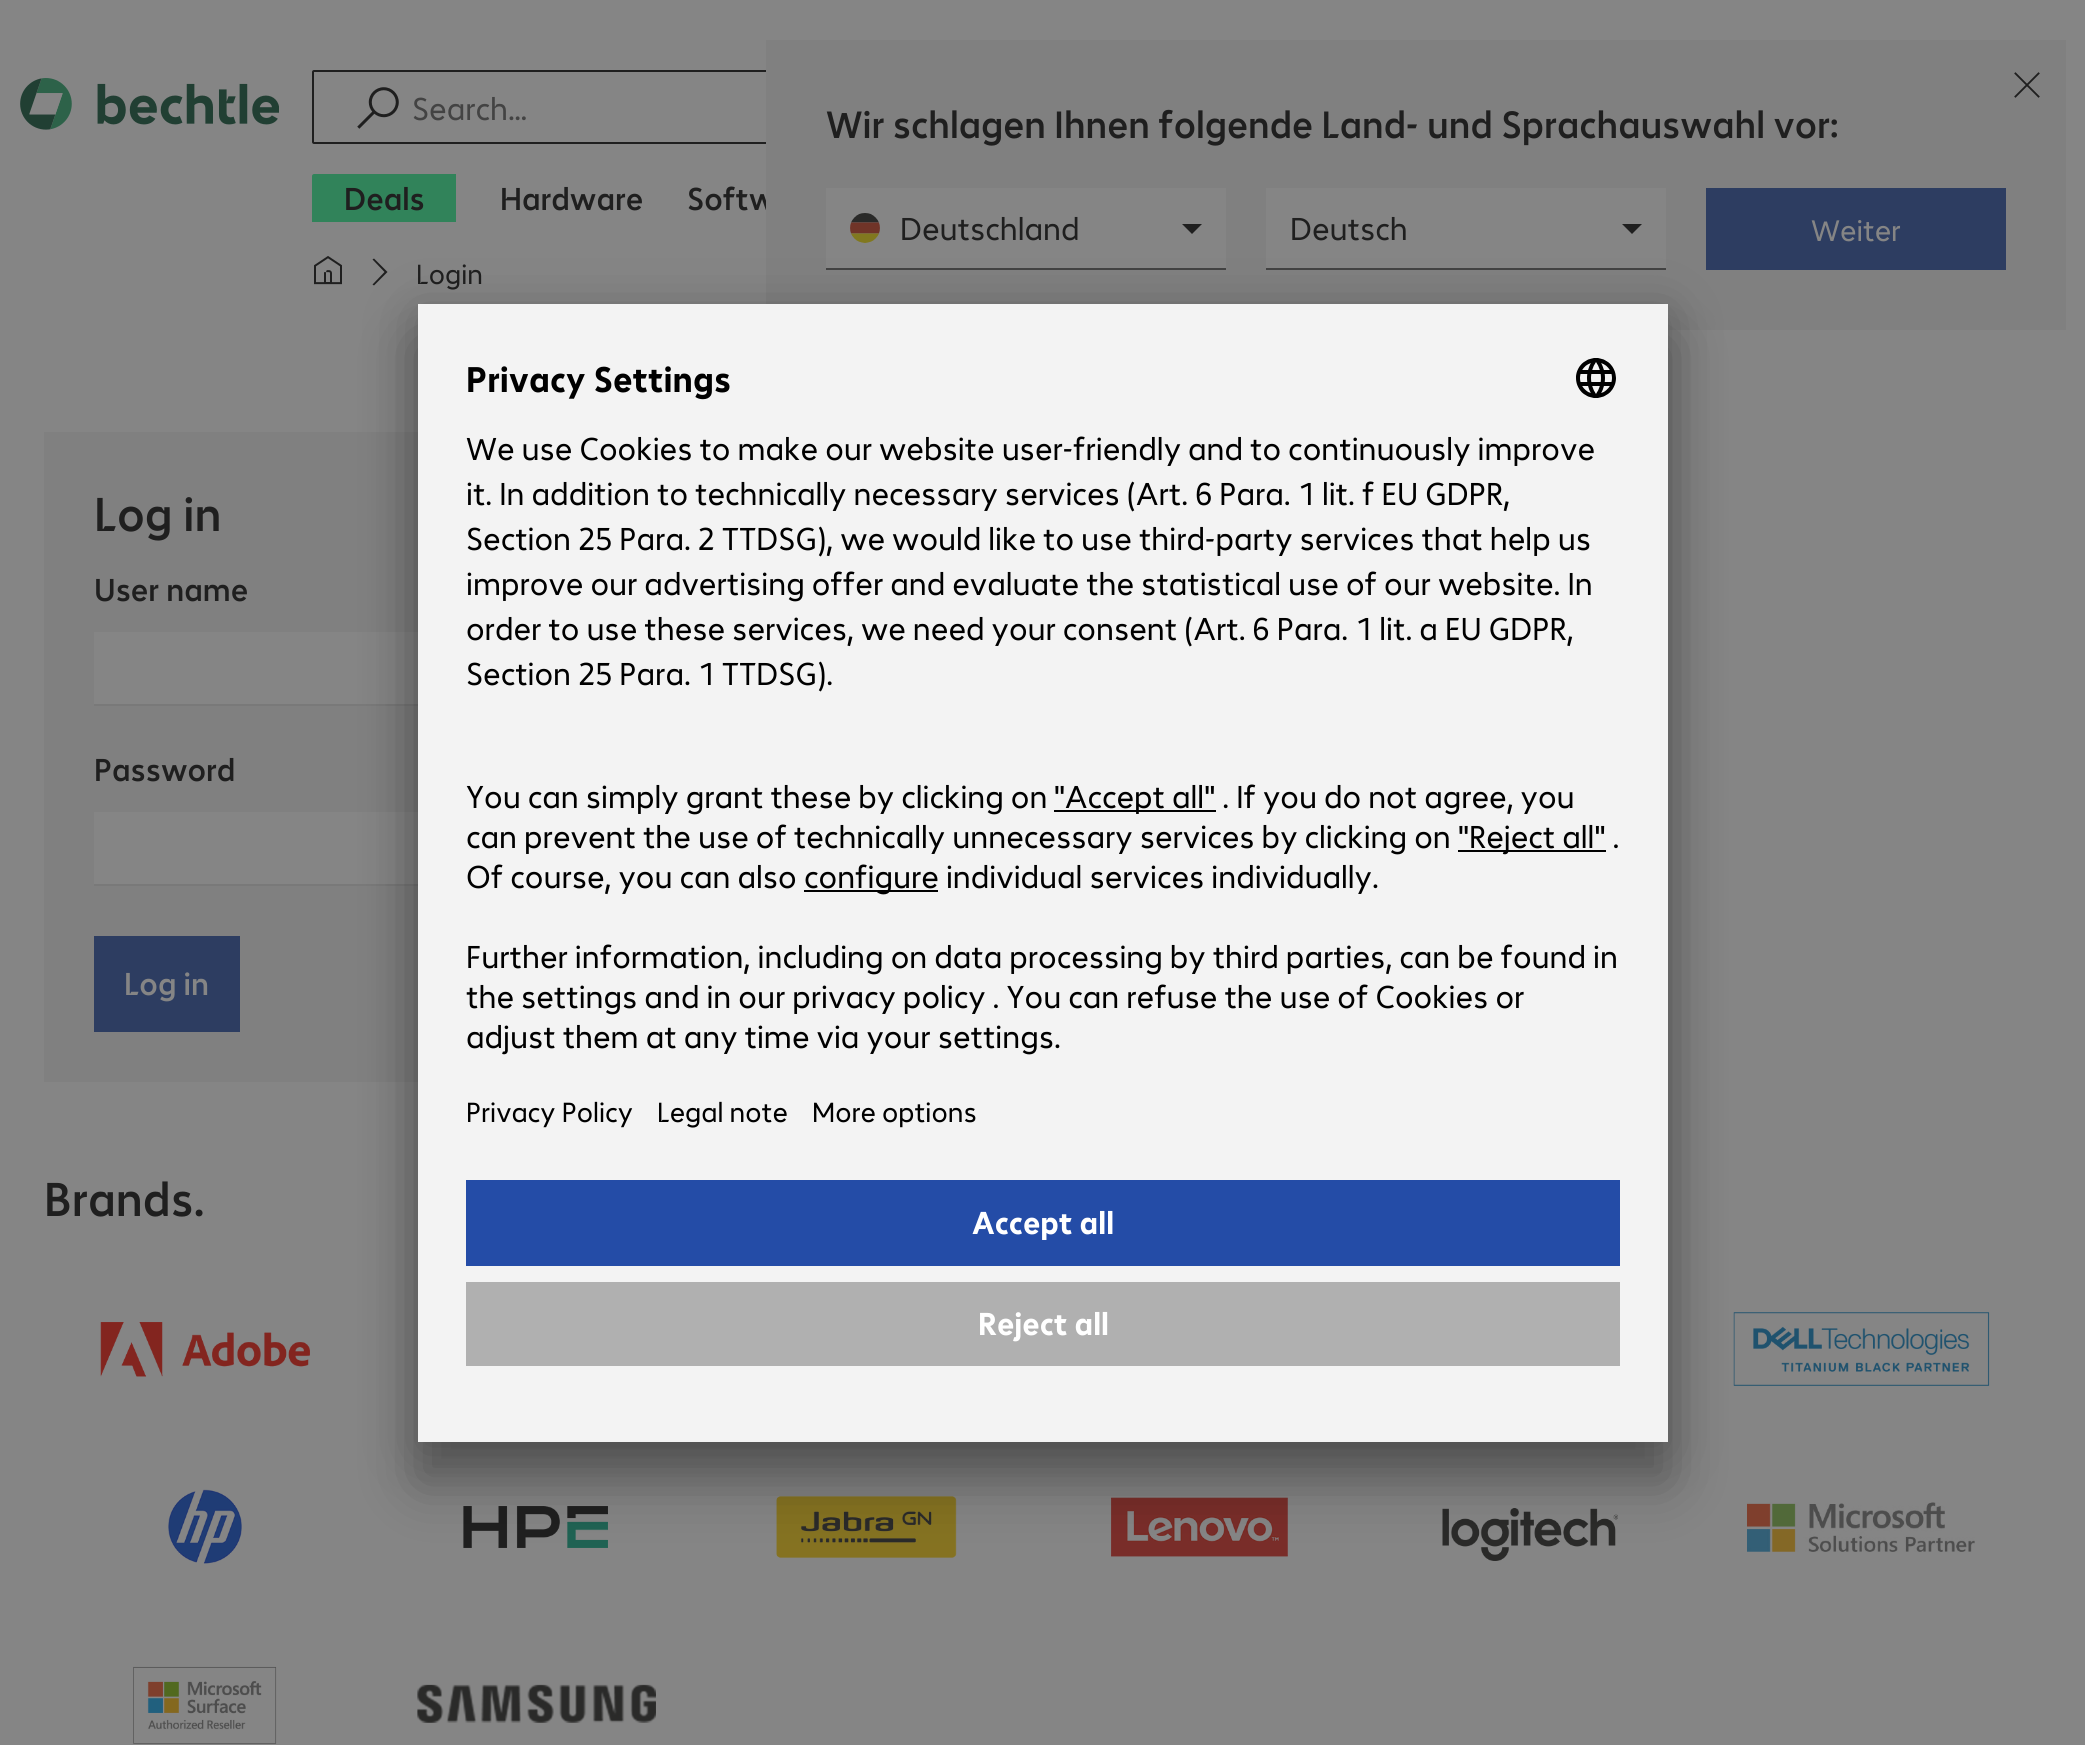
import math
import cairo



def rounded_rect(context, x, y, w, h, r):
    context.new_sub_path()
    for i, (u, v) in enumerate([(x + w - r, y + h - r), (x + r, y + h - r), (x + r, y + r), (x + w - r, y + r)]):
        context.arc(u, v, r, i * math.pi / 2, (i + 1) * math.pi / 2)
    context.close_path()


def draw_shadow(context, x, y, w, h, r, blur, alpha):
    context.push_group_with_content(cairo.Content.ALPHA)
    context.set_operator(cairo.Operator.SOURCE)
    for i in range(15, -16, -2):
        e = blur * i / 6
        if min(w, h) + 2 * e > 0:
            context.set_source_rgba(0, 0, 0, alpha * math.erfc((i - 1) / 8.5) / 2)
            rounded_rect(context, x - e, y - e, w + 2 * e, h + 2 * e, max(0, min(r + e + blur * .6, min(w, h) / 2 + e)))
            context.fill()
    context.mask(context.pop_group())


def draw_image(context, path, x, y, w, h):
    context.save()
    context.set_source_surface(cairo.ImageSurface.create_from_png(path), x, y)
    context.rectangle(x, y, w, h)
    context.fill()
    context.restore()


def draw(context):
    context.set_source_rgb(133 / 255, 133 / 255, 133 / 255)
    context.paint()
    draw_image(context, "images/1.png", 20, 78, 259, 52)
    rounded_rect(context, 313, 71, 1384, 72, 1)
    context.set_source_rgb(31 / 255, 31 / 255, 31 / 255)
    context.stroke()
    draw_image(context, "images/2.png", 357, 87, 42, 42)
    context.set_source_rgb(49 / 255, 131 / 255, 90 / 255)
    context.new_path()
    context.move_to(314, 174)
    context.line_to(456, 174)
    context.line_to(456, 222)
    context.line_to(312, 222)
    context.line_to(312, 176)
    context.curve_to(312, 175, 313, 174, 314, 174)
    context.close_path()
    context.fill()
    draw_image(context, "images/3.png", 314, 256, 28, 29)
    context.set_source_rgb(31 / 255, 31 / 255, 31 / 255)
    context.new_path()
    context.move_to(374, 285.5)
    context.line_to(372.5, 284.5)
    context.line_to(384.5, 272)
    context.line_to(372.5, 259.5)
    context.line_to(374, 258.5)
    context.line_to(387.5, 272)
    context.close_path()
    context.fill()
    context.set_source_rgb(128 / 255, 128 / 255, 128 / 255)
    context.rectangle(44, 432, 374, 650)
    context.fill()
    context.set_source_rgb(133 / 255, 133 / 255, 133 / 255)
    context.rectangle(94, 632, 324, 72)
    context.fill()
    context.set_source_rgb(121 / 255, 121 / 255, 121 / 255)
    context.rectangle(94, 704, 324, 2)
    context.fill()
    context.set_source_rgb(133 / 255, 133 / 255, 133 / 255)
    context.rectangle(94, 812, 324, 72)
    context.fill()
    context.set_source_rgb(121 / 255, 121 / 255, 121 / 255)
    context.rectangle(94, 884, 324, 2)
    context.fill()
    context.set_source_rgb(45 / 255, 61 / 255, 97 / 255)
    context.rectangle(94, 936, 146, 96)
    context.fill()
    draw_image(context, "images/6.png", 100, 1322, 210, 55)
    draw_image(context, "images/7.png", 1733, 1312, 257, 74)
    draw_image(context, "images/8.png", 168, 1489, 74, 75)
    draw_image(context, "images/9.png", 463, 1506, 145, 42)
    draw_image(context, "images/10.png", 776, 1496, 181, 62)
    draw_image(context, "images/11.png", 1111, 1497, 177, 60)
    draw_image(context, "images/12.png", 1442, 1508, 176, 53)
    draw_image(context, "images/13.png", 1747, 1502, 228, 50)
    draw_image(context, "images/14.png", 133, 1666, 144, 78)
    draw_image(context, "images/15.png", 417, 1684, 239, 39)
    context.select_font_face("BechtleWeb")
    context.set_font_size(32)
    context.set_source_rgb(67 / 255, 67 / 255, 67 / 255)
    context.move_to(412, 120)
    context.show_text("Search…")
    context.select_font_face("BechtleWeb Medium")
    context.set_source_rgb(31 / 255, 31 / 255, 31 / 255)
    context.move_to(344, 210)
    context.show_text("Deals")
    context.move_to(500, 210)
    context.show_text("Hardware")
    context.move_to(687, 210)
    context.show_text("Softw")
    context.select_font_face("BechtleWeb")
    context.set_font_size(28)
    context.move_to(416, 284)
    context.show_text("Login")
    context.set_source_rgb(128 / 255, 128 / 255, 128 / 255)
    context.rectangle(766, 40, 1300, 290)
    context.fill()
    draw_image(context, "images/4.png", 2014, 72, 26, 26)
    context.select_font_face("BechtleWeb Medium")
    context.set_font_size(38.4)
    context.set_source_rgb(31 / 255, 31 / 255, 31 / 255)
    context.move_to(826, 138)
    context.show_text("Wir schlagen Ihnen folgende Land- und Sprachauswahl vor:")
    context.set_source_rgb(133 / 255, 133 / 255, 133 / 255)
    context.rectangle(826, 188, 400, 80)
    context.fill()
    context.set_source_rgb(67 / 255, 67 / 255, 67 / 255)
    context.rectangle(826, 268, 400, 2)
    context.fill()
    draw_image(context, "images/5.png", 850, 213, 30, 30)
    context.select_font_face("BechtleWeb")
    context.set_font_size(32)
    context.set_source_rgb(31 / 255, 31 / 255, 31 / 255)
    context.move_to(900, 240)
    context.show_text("Deutschland")
    context.new_path()
    context.move_to(1182, 224)
    context.line_to(1202, 224)
    context.line_to(1192, 234)
    context.close_path()
    context.fill()
    context.set_source_rgb(133 / 255, 133 / 255, 133 / 255)
    context.rectangle(1266, 188, 400, 80)
    context.fill()
    context.set_source_rgb(67 / 255, 67 / 255, 67 / 255)
    context.rectangle(1266, 268, 400, 2)
    context.fill()
    context.set_source_rgb(31 / 255, 31 / 255, 31 / 255)
    context.move_to(1290, 240)
    context.show_text("Deutsch")
    context.new_path()
    context.move_to(1622, 224)
    context.line_to(1642, 224)
    context.line_to(1632, 234)
    context.close_path()
    context.fill()
    context.set_source_rgb(45 / 255, 61 / 255, 97 / 255)
    context.rectangle(1706, 188, 300, 82)
    context.fill()
    context.set_font_size(30)
    context.set_source_rgb(133 / 255, 133 / 255, 133 / 255)
    context.move_to(1811, 241)
    context.show_text("Weiter")
    context.select_font_face("BechtleWeb Medium")
    context.set_font_size(48)
    context.set_source_rgb(31 / 255, 31 / 255, 31 / 255)
    context.move_to(94, 531)
    context.show_text("Log in")
    context.set_font_size(32)
    context.move_to(94, 601)
    context.show_text("User name")
    context.move_to(94, 781)
    context.show_text("Password")
    context.set_source_rgb(133 / 255, 133 / 255, 133 / 255)
    context.move_to(124, 995)
    context.show_text("Log in")
    context.set_font_size(48)
    context.set_source_rgb(31 / 255, 31 / 255, 31 / 255)
    context.move_to(44, 1216)
    context.show_text("Brands.")
    context.set_source_rgb(0, 0, 0)
    draw_shadow(context, 418, 344, 1250, 1138, 0, 28, 0.3)
    draw_shadow(context, 418, 314, 1250, 1138, 0, 26, 0.22)
    context.set_source_rgb(243 / 255, 243 / 255, 243 / 255)
    context.rectangle(418, 304, 1250, 1138)
    context.fill()
    context.select_font_face("BechtleWeb", cairo.FontSlant.NORMAL, cairo.FontWeight.BOLD)
    context.set_font_size(36)
    context.set_source_rgb(0, 0, 0)
    context.move_to(466, 392)
    context.show_text("Privacy Settings")
    draw_image(context, "images/16.png", 1576, 358, 40, 40)
    context.select_font_face("BechtleWeb")
    context.set_font_size(32)
    context.move_to(466, 460)
    context.show_text("We use Cookies to make our website user-friendly and to continuously improve")
    context.move_to(466, 505)
    context.show_text("it. In addition to technically necessary services (Art. 6 Para. 1 lit. f EU GDPR,")
    context.move_to(466, 550)
    context.show_text("Section 25 Para. 2 TTDSG), we would like to use third-party services that help us")
    context.move_to(466, 595)
    context.show_text("improve our advertising offer and evaluate the statistical use of our website. In")
    context.move_to(466, 640)
    context.show_text("order to use these services, we need your consent (Art. 6 Para. 1 lit. a EU GDPR,")
    context.move_to(466, 685)
    context.show_text("Section 25 Para. 1 TTDSG).")
    context.move_to(466, 808)
    context.show_text("You can simply grant these by clicking on")
    context.rectangle(1054, 810, 162, 2)
    context.fill()
    context.move_to(1054, 808)
    context.show_text("\"Accept all\" . If you do not agree, you")
    context.move_to(466, 848)
    context.show_text("can prevent the use of technically unnecessary services by clicking on")
    context.rectangle(1458, 850, 148, 2)
    context.fill()
    context.move_to(1458, 848)
    context.show_text("\"Reject all\" .")
    context.move_to(466, 888)
    context.show_text("Of course, you can also")
    context.rectangle(804, 890, 134, 2)
    context.fill()
    context.move_to(804, 888)
    context.show_text("configure individual services individually.")
    context.move_to(466, 968)
    context.show_text("Further information, including on data processing by third parties, can be found in")
    context.move_to(466, 1008)
    context.show_text("the settings and in our privacy policy . You can refuse the use of Cookies or")
    context.move_to(466, 1048)
    context.show_text("adjust them at any time via your settings.")
    context.set_font_size(28)
    context.move_to(466, 1122)
    context.show_text("Privacy Policy")
    context.move_to(657, 1122)
    context.show_text("Legal note")
    context.move_to(812, 1122)
    context.show_text("More options")
    context.set_source_rgb(36 / 255, 76 / 255, 167 / 255)
    context.rectangle(466, 1180, 1154, 86)
    context.fill()
    context.select_font_face("BechtleWeb", cairo.FontSlant.NORMAL, cairo.FontWeight.BOLD)
    context.set_font_size(32)
    context.set_source_rgb(1, 1, 1)
    context.move_to(972, 1234)
    context.show_text("Accept all")
    context.set_source_rgb(176 / 255, 176 / 255, 176 / 255)
    context.rectangle(466, 1282, 1154, 84)
    context.fill()
    context.set_source_rgb(1, 1, 1)
    context.move_to(978, 1335)
    context.show_text("Reject all")


surface = cairo.ImageSurface(cairo.Format.RGB24, 2085, 1745)
context = cairo.Context(surface)
options = cairo.FontOptions()
options.set_hint_metrics(cairo.HintMetrics.OFF)
options.set_hint_style(cairo.HintStyle.NONE)
context.set_font_options(options)
context.set_miter_limit(4)
draw(context)
surface.write_to_png("out.png")
